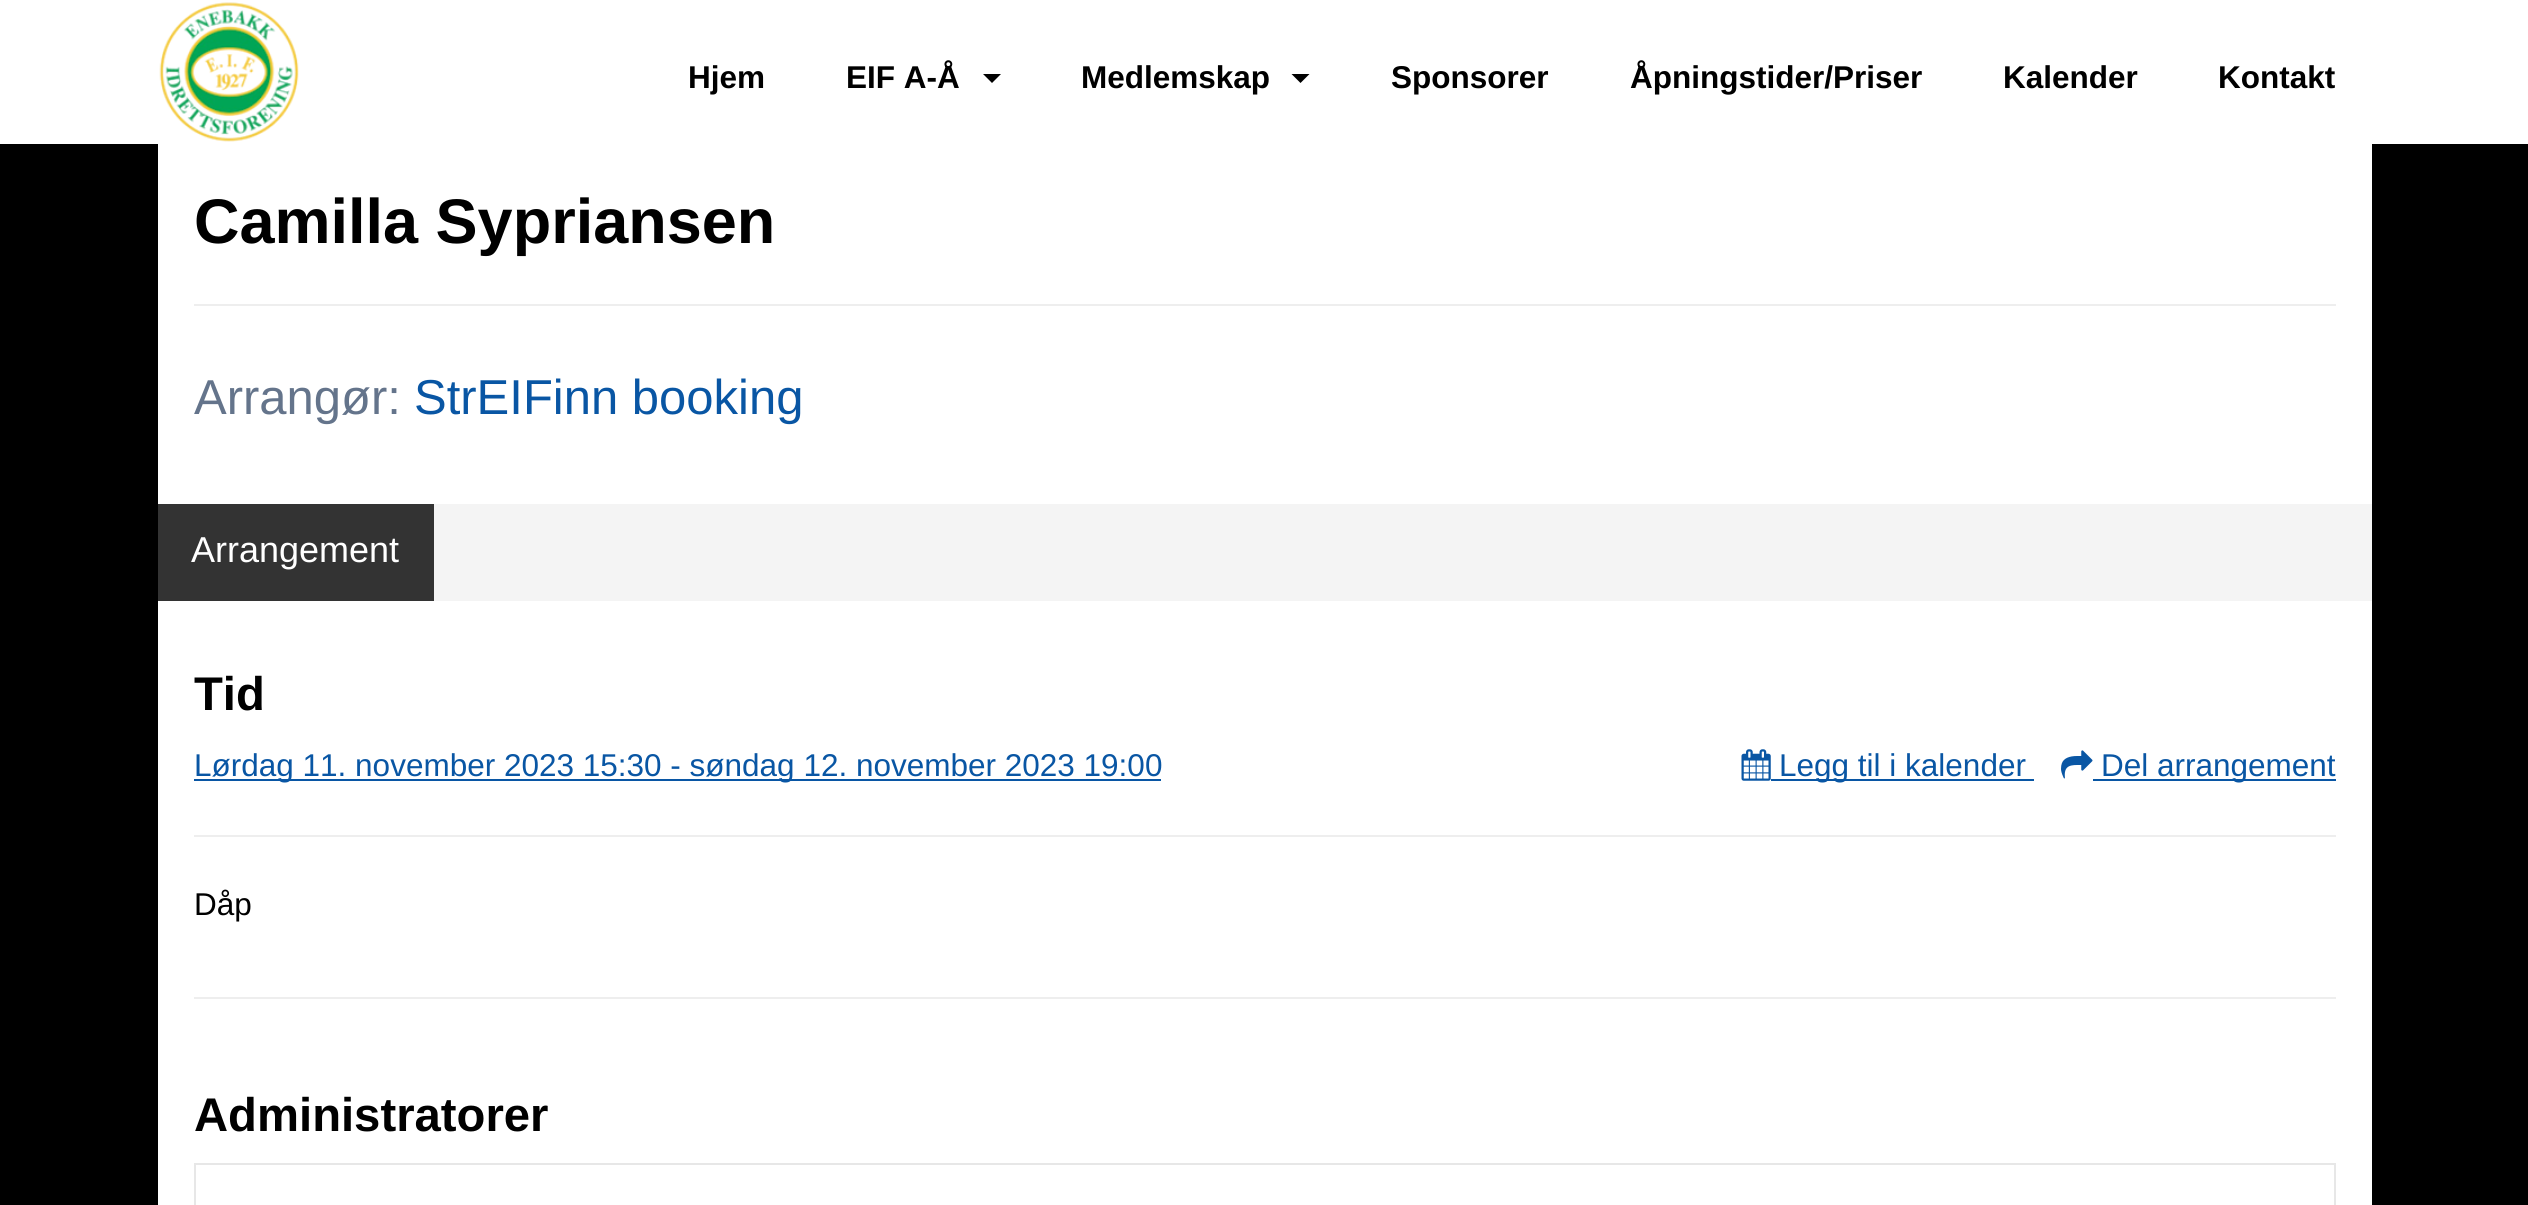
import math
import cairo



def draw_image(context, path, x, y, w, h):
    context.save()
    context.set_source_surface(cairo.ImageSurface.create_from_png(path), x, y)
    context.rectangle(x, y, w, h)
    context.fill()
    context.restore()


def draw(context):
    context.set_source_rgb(0, 0, 0)
    context.paint()
    context.set_source_rgb(1, 1, 1)
    context.rectangle(0, 0, 2528, 144)
    context.fill()
    draw_image(context, "images/1.png", 159, 2, 140, 140)
    context.set_source_rgb(0, 0, 0)
    context.new_path()
    context.move_to(983, 74)
    context.line_to(1001, 74)
    context.line_to(992, 83)
    context.close_path()
    context.fill()
    context.new_path()
    context.move_to(1291.5, 74)
    context.line_to(1309.5, 74)
    context.line_to(1300.5, 83)
    context.close_path()
    context.fill()
    context.set_source_rgb(1, 1, 1)
    context.rectangle(158, 144, 2214, 1061)
    context.fill()
    context.set_source_rgb(238 / 255, 238 / 255, 238 / 255)
    context.rectangle(194, 304, 2142, 2)
    context.fill()
    context.set_source_rgb(244 / 255, 244 / 255, 244 / 255)
    context.rectangle(434, 504, 1938, 97)
    context.fill()
    context.set_source_rgb(51 / 255, 51 / 255, 51 / 255)
    context.rectangle(158, 504, 276, 97)
    context.fill()
    context.set_source_rgb(9 / 255, 86 / 255, 164 / 255)
    context.rectangle(194, 779, 967, 2)
    context.fill()
    draw_image(context, "images/2.png", 1741, 749, 30, 32)
    context.rectangle(1771, 779, 263, 2)
    context.fill()
    draw_image(context, "images/3.png", 2061, 750, 32, 29)
    context.rectangle(2093, 779, 243, 2)
    context.fill()
    context.set_source_rgb(238 / 255, 238 / 255, 238 / 255)
    context.rectangle(194, 835, 2142, 2)
    context.fill()
    context.rectangle(194, 997, 2142, 2)
    context.fill()
    context.rectangle(195, 1164, 2140, 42)
    context.set_source_rgb(231 / 255, 231 / 255, 231 / 255)
    context.stroke()
    context.select_font_face("Liberation Sans", cairo.FontSlant.NORMAL, cairo.FontWeight.BOLD)
    context.set_font_size(31.5)
    context.set_source_rgb(0, 0, 0)
    context.move_to(688, 88)
    context.show_text("Hjem")
    context.move_to(846, 88)
    context.show_text("EIF A-Å")
    context.move_to(1081, 88)
    context.show_text("Medlemskap")
    context.move_to(1391, 88)
    context.show_text("Sponsorer")
    context.move_to(1630, 88)
    context.show_text("Åpningstider/Priser")
    context.move_to(2003, 88)
    context.show_text("Kalender")
    context.move_to(2218, 88)
    context.show_text("Kontakt")
    context.set_font_size(63)
    context.move_to(194, 243)
    context.show_text("Camilla Sypriansen")
    context.select_font_face("Liberation Sans")
    context.set_font_size(49)
    context.set_source_rgb(100 / 255, 116 / 255, 139 / 255)
    context.move_to(194, 414)
    context.show_text("Arrangør:")
    context.set_source_rgb(9 / 255, 86 / 255, 164 / 255)
    context.move_to(414, 414)
    context.show_text("StrEIFinn booking")
    context.set_font_size(36)
    context.set_source_rgb(1, 1, 1)
    context.move_to(191, 562)
    context.show_text("Arrangement")
    context.select_font_face("Liberation Sans", cairo.FontSlant.NORMAL, cairo.FontWeight.BOLD)
    context.set_font_size(47.25)
    context.set_source_rgb(0, 0, 0)
    context.move_to(194, 710)
    context.show_text("Tid")
    context.select_font_face("Liberation Sans")
    context.set_font_size(31.5)
    context.set_source_rgb(9 / 255, 86 / 255, 164 / 255)
    context.move_to(194, 776)
    context.show_text("Lørdag 11. november 2023 15:30 - søndag 12. november 2023 19:00")
    context.move_to(1779, 776)
    context.show_text("Legg til i kalender")
    context.move_to(2101, 776)
    context.show_text("Del arrangement")
    context.set_source_rgb(0, 0, 0)
    context.move_to(194, 915)
    context.show_text("Dåp")
    context.select_font_face("Liberation Sans", cairo.FontSlant.NORMAL, cairo.FontWeight.BOLD)
    context.set_font_size(47.25)
    context.move_to(194, 1131)
    context.show_text("Administratorer")


surface = cairo.ImageSurface(cairo.Format.RGB24, 2528, 1205)
context = cairo.Context(surface)
options = cairo.FontOptions()
options.set_hint_metrics(cairo.HintMetrics.OFF)
options.set_hint_style(cairo.HintStyle.NONE)
context.set_font_options(options)
context.set_miter_limit(4)
draw(context)
surface.write_to_png("out.png")
